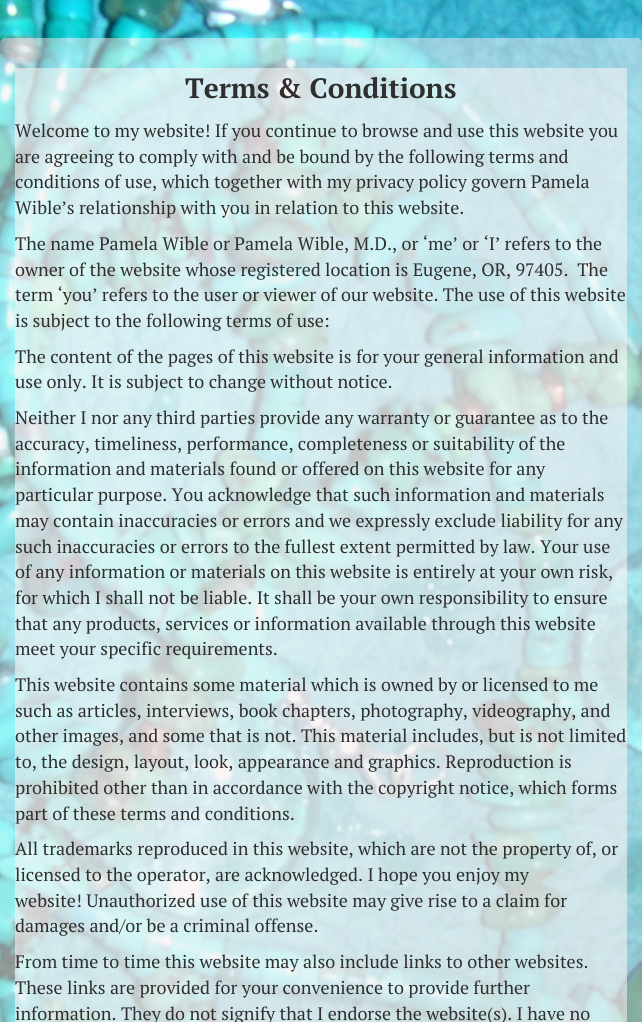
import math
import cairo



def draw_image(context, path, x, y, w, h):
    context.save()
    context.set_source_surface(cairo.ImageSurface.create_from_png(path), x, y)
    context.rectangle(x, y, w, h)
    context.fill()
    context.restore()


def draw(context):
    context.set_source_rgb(1, 1, 1)
    context.paint()
    draw_image(context, "images/1.png", 0, 0, 642, 1022)
    context.set_source_rgba(250 / 255, 243 / 255, 243 / 255, 0.57)
    context.rectangle(15, 68, 612, 954)
    context.fill()
    context.select_font_face("PT Serif", cairo.FontSlant.NORMAL, cairo.FontWeight.BOLD)
    context.set_font_size(28)
    context.set_source_rgb(47 / 255, 47 / 255, 47 / 255)
    context.move_to(185, 98)
    context.show_text("Terms & Conditions")
    context.select_font_face("PT Serif")
    context.set_font_size(18)
    context.move_to(15, 137)
    context.show_text("Welcome to my website! If you continue to browse and use this website you")
    context.move_to(15, 163)
    context.show_text("are agreeing to comply with and be bound by the following terms and")
    context.move_to(15, 188)
    context.show_text("conditions of use, which together with my privacy policy govern Pamela")
    context.move_to(15, 214)
    context.show_text("Wible’s relationship with you in relation to this website.")
    context.move_to(15, 250)
    context.show_text("The name Pamela Wible or Pamela Wible, M.D., or ‘me’ or ‘I’ refers to the")
    context.move_to(15, 276)
    context.show_text("owner of the website whose registered location is Eugene, OR, 97405.  The")
    context.move_to(15, 301)
    context.show_text("term ‘you’ refers to the user or viewer of our website. The use of this website")
    context.move_to(15, 327)
    context.show_text("is subject to the following terms of use:")
    context.move_to(15, 363)
    context.show_text("The content of the pages of this website is for your general information and")
    context.move_to(15, 388)
    context.show_text("use only. It is subject to change without notice.")
    context.move_to(15, 424)
    context.show_text("Neither I nor any third parties provide any warranty or guarantee as to the")
    context.move_to(15, 450)
    context.show_text("accuracy, timeliness, performance, completeness or suitability of the")
    context.move_to(15, 475)
    context.show_text("information and materials found or offered on this website for any")
    context.move_to(15, 501)
    context.show_text("particular purpose. You acknowledge that such information and materials")
    context.move_to(15, 527)
    context.show_text("may contain inaccuracies or errors and we expressly exclude liability for any")
    context.move_to(15, 553)
    context.show_text("such inaccuracies or errors to the fullest extent permitted by law. Your use")
    context.move_to(15, 578)
    context.show_text("of any information or materials on this website is entirely at your own risk,")
    context.move_to(15, 604)
    context.show_text("for which I shall not be liable. It shall be your own responsibility to ensure")
    context.move_to(15, 630)
    context.show_text("that any products, services or information available through this website")
    context.move_to(15, 655)
    context.show_text("meet your specific requirements.")
    context.move_to(15, 691)
    context.show_text("This website contains some material which is owned by or licensed to me")
    context.move_to(15, 717)
    context.show_text("such as articles, interviews, book chapters, photography, videography, and")
    context.move_to(15, 742)
    context.show_text("other images, and some that is not. This material includes, but is not limited")
    context.move_to(15, 768)
    context.show_text("to, the design, layout, look, appearance and graphics. Reproduction is")
    context.move_to(15, 794)
    context.show_text("prohibited other than in accordance with the copyright notice, which forms")
    context.move_to(15, 820)
    context.show_text("part of these terms and conditions.")
    context.move_to(15, 855)
    context.show_text("All trademarks reproduced in this website, which are not the property of, or")
    context.move_to(15, 881)
    context.show_text("licensed to the operator, are acknowledged. I hope you enjoy my")
    context.move_to(15, 907)
    context.show_text("website! Unauthorized use of this website may give rise to a claim for")
    context.move_to(15, 932)
    context.show_text("damages and/or be a criminal offense.")
    context.move_to(15, 968)
    context.show_text("From time to time this website may also include links to other websites.")
    context.move_to(15, 994)
    context.show_text("These links are provided for your convenience to provide further")
    context.move_to(15, 1020)
    context.show_text("information. They do not signify that I endorse the website(s). I have no")


surface = cairo.ImageSurface(cairo.Format.RGB24, 642, 1022)
context = cairo.Context(surface)
options = cairo.FontOptions()
options.set_hint_metrics(cairo.HintMetrics.OFF)
options.set_hint_style(cairo.HintStyle.NONE)
context.set_font_options(options)
context.set_miter_limit(4)
draw(context)
surface.write_to_png("out.png")
